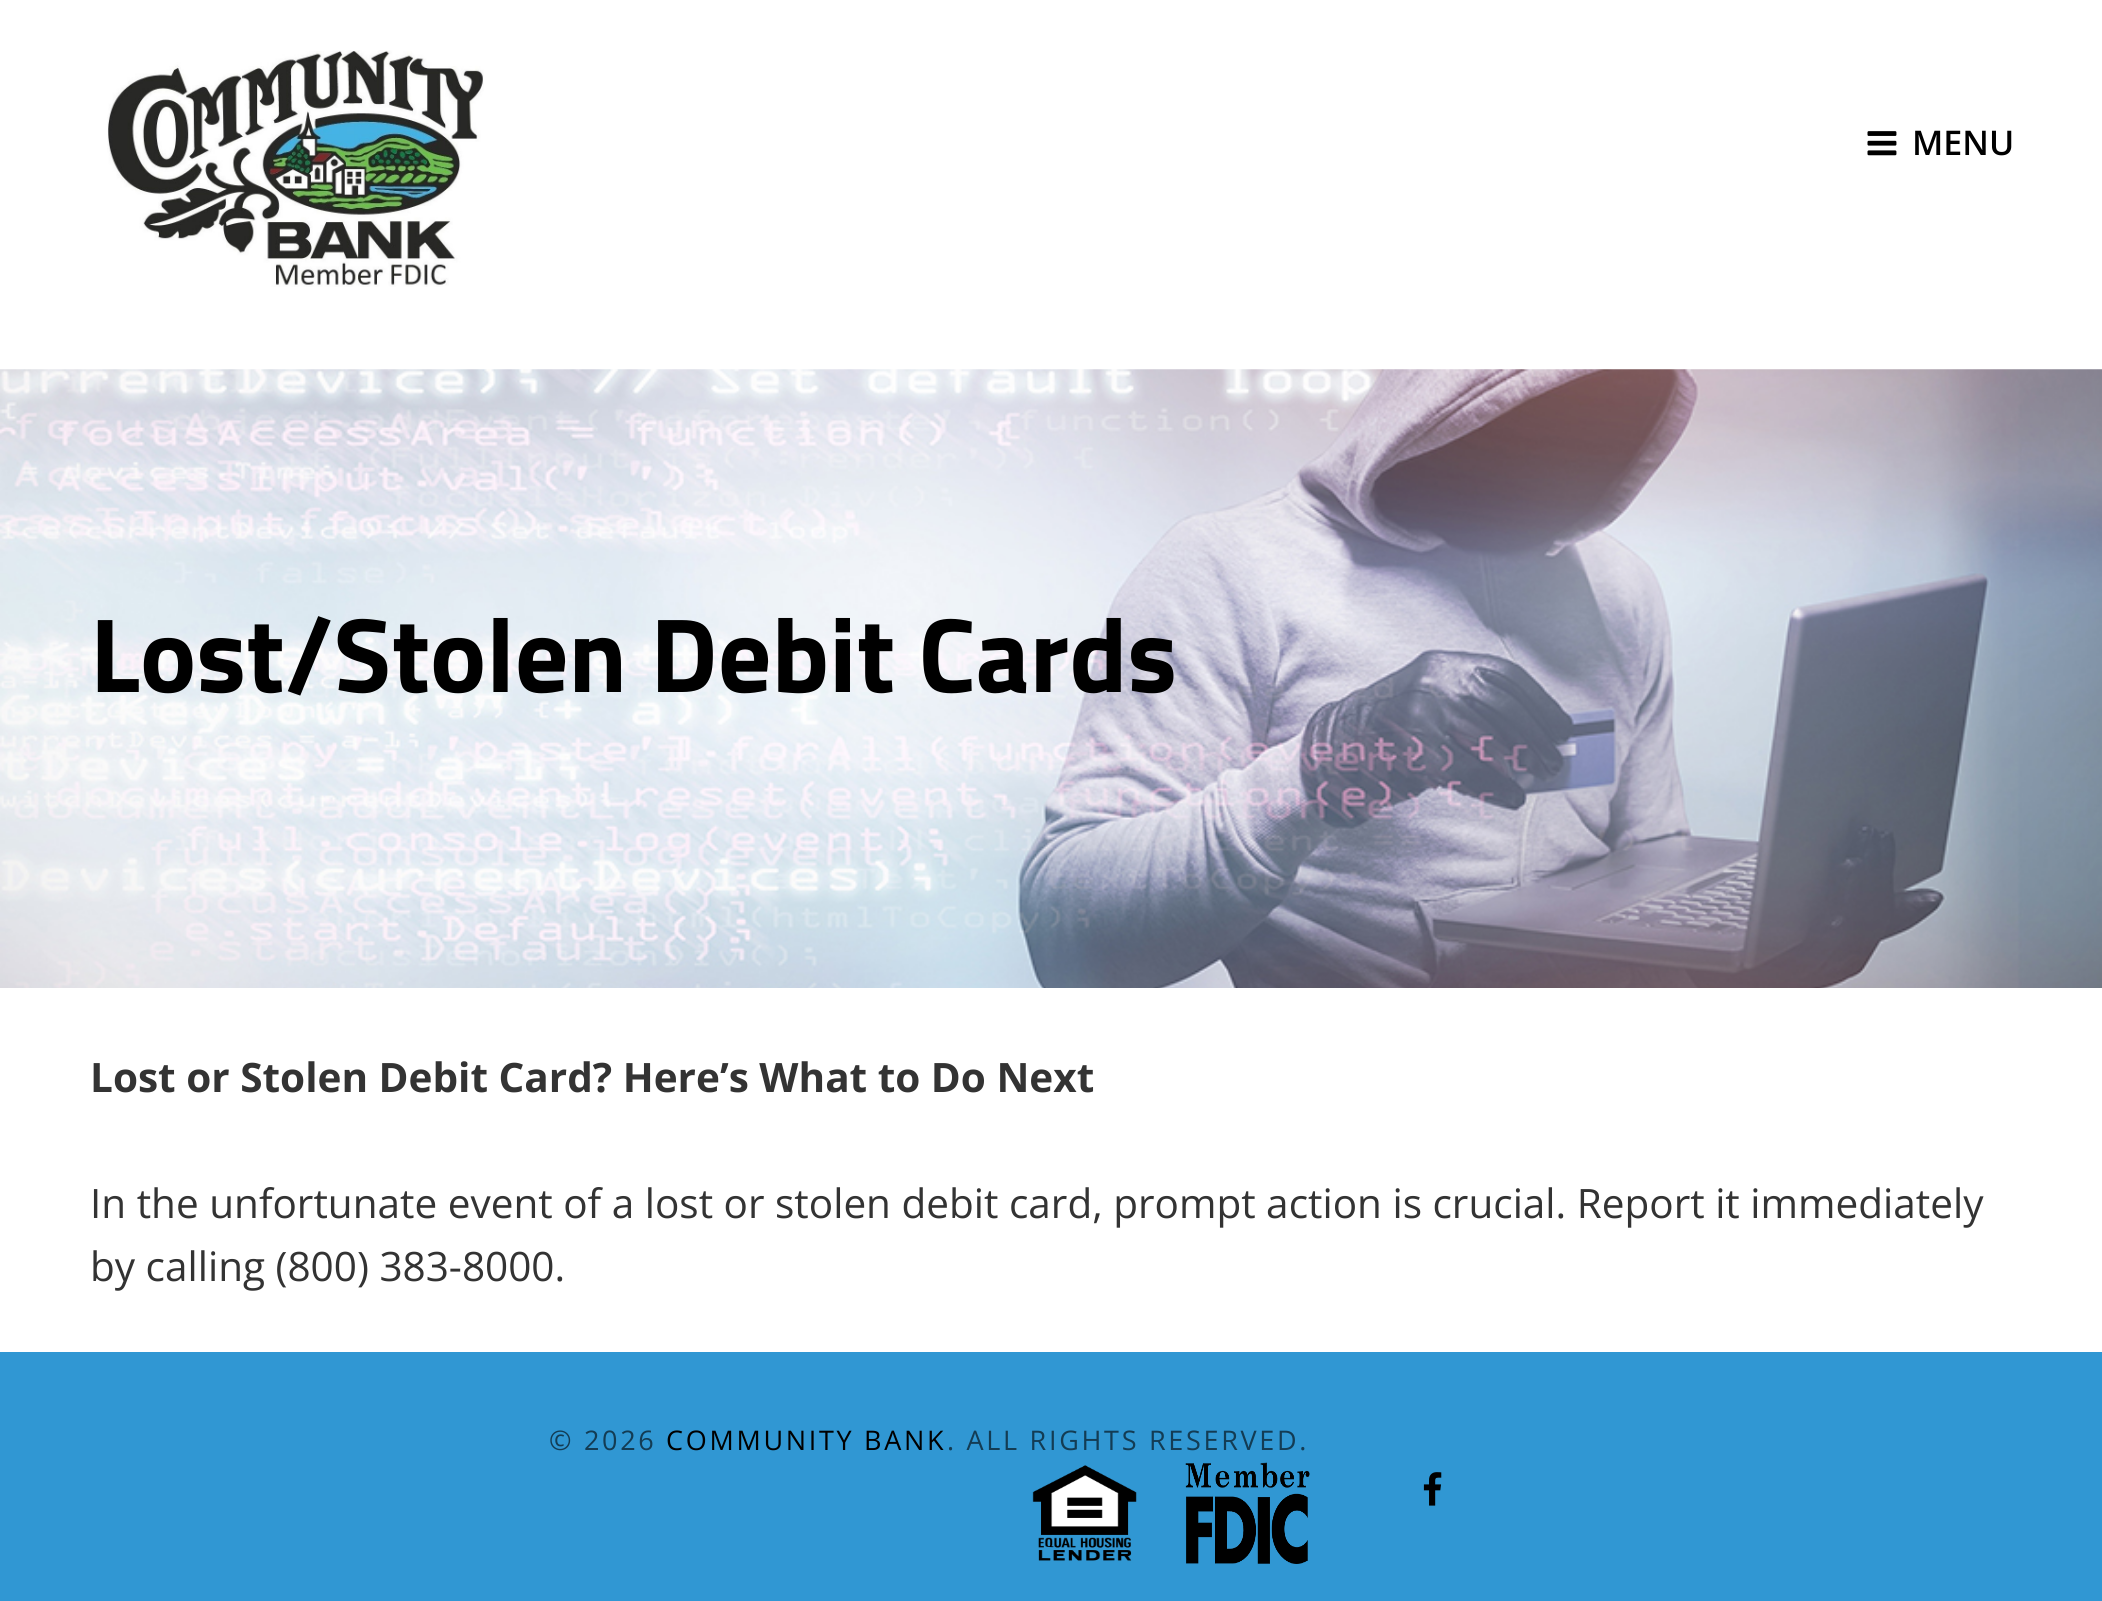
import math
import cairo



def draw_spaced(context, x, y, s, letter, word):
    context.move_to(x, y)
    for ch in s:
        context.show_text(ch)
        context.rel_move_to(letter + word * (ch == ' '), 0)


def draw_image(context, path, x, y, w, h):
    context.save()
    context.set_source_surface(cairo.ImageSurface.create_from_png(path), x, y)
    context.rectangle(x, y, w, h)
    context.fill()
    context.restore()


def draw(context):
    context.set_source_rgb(1, 1, 1)
    context.paint()
    draw_image(context, "images/1.png", 107, 50, 377, 237)
    draw_image(context, "images/2.png", 1867, 131, 30, 25)
    draw_image(context, "images/3.png", 0, 369, 2102, 619)
    context.set_source_rgb(48 / 255, 151 / 255, 211 / 255)
    context.rectangle(0, 1352, 2102, 249)
    context.fill()
    draw_image(context, "images/4.png", 1032, 1465, 105, 96)
    draw_image(context, "images/5.png", 1185, 1462, 125, 102)
    draw_image(context, "images/6.png", 1423, 1472, 19, 34)
    context.select_font_face("Open Sans SemiBold")
    context.set_font_size(34)
    context.set_source_rgb(0, 0, 0)
    context.move_to(1912, 155)
    context.show_text("MENU")
    context.select_font_face("Titillium Web", cairo.FontSlant.NORMAL, cairo.FontWeight.BOLD)
    context.set_font_size(105.75)
    context.move_to(90, 692)
    context.show_text("Lost/Stolen Debit Cards")
    context.select_font_face("Open Sans", cairo.FontSlant.NORMAL, cairo.FontWeight.BOLD)
    context.set_font_size(40.5)
    context.set_source_rgb(51 / 255, 51 / 255, 51 / 255)
    context.move_to(90, 1092)
    context.show_text("Lost or Stolen Debit Card? Here’s What to Do Next")
    context.select_font_face("Open Sans")
    context.move_to(90, 1218)
    context.show_text("In the unfortunate event of a lost or stolen debit card, prompt action is crucial. Report it immediately")
    context.move_to(90, 1281)
    context.show_text("by calling (800) 383-8000.")
    context.set_font_size(27)
    context.set_source_rgb(19 / 255, 60 / 255, 84 / 255)
    draw_spaced(context, 549, 1450, "© 2026", 2.7, 0)
    context.set_source_rgb(0, 0, 0)
    draw_spaced(context, 666, 1450, "COMMUNITY BANK", 2.7, 0)
    context.set_source_rgb(19 / 255, 60 / 255, 84 / 255)
    draw_spaced(context, 947, 1450, ". ALL RIGHTS RESERVED.", 2.7, 0)


surface = cairo.ImageSurface(cairo.Format.RGB24, 2102, 1601)
context = cairo.Context(surface)
options = cairo.FontOptions()
options.set_hint_metrics(cairo.HintMetrics.OFF)
options.set_hint_style(cairo.HintStyle.NONE)
context.set_font_options(options)
context.set_miter_limit(4)
draw(context)
surface.write_to_png("out.png")
